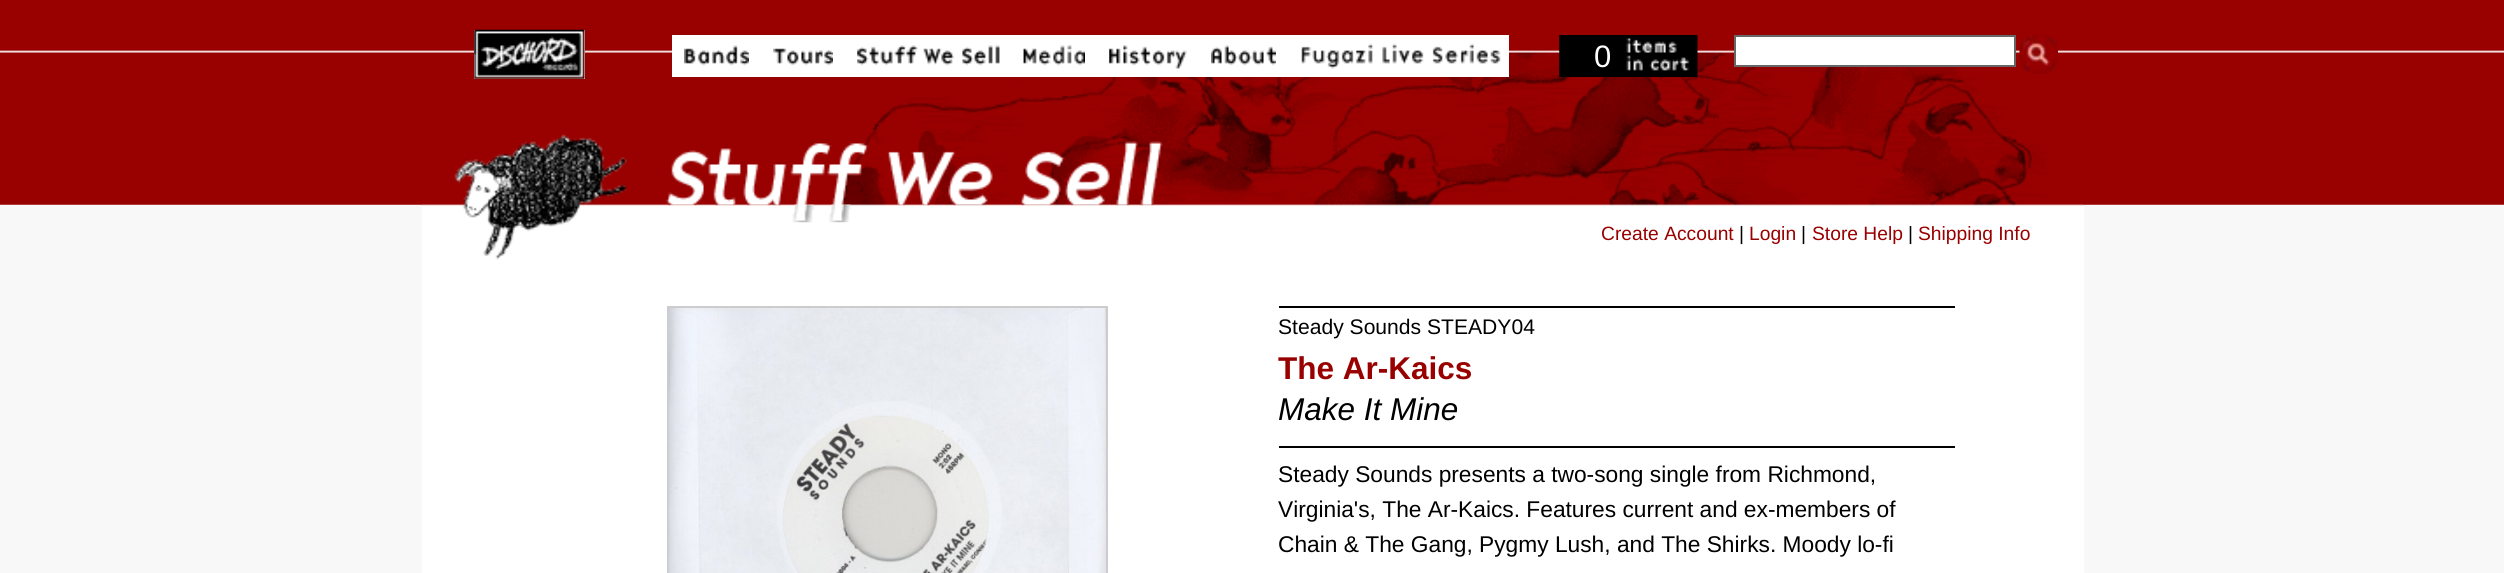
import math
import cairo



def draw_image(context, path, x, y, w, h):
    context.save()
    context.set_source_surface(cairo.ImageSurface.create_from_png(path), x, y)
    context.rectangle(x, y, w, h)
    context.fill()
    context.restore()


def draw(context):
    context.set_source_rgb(248 / 255, 248 / 255, 248 / 255)
    context.paint()
    draw_image(context, "images/1.png", 0, 0, 2504, 205)
    context.set_source_rgb(1, 1, 1)
    context.rectangle(422, 204, 1662, 369)
    context.fill()
    draw_image(context, "images/2.png", 421, 0, 1664, 260)
    context.rectangle(474, 30, 111, 49)
    context.fill()
    draw_image(context, "images/3.png", 474, 29, 111, 50)
    context.rectangle(672, 35, 837, 42)
    context.fill()
    draw_image(context, "images/4.png", 684, 45, 65, 21)
    draw_image(context, "images/5.png", 684, 48, 1, 16)
    draw_image(context, "images/6.png", 773, 48, 60, 18)
    draw_image(context, "images/7.png", 773, 48, 1, 5)
    draw_image(context, "images/8.png", 857, 45, 143, 21)
    draw_image(context, "images/9.png", 857, 45, 143, 19)
    draw_image(context, "images/10.png", 1023, 45, 62, 21)
    draw_image(context, "images/11.png", 1023, 48, 1, 16)
    draw_image(context, "images/12.png", 1109, 45, 78, 24)
    draw_image(context, "images/13.png", 1109, 48, 78, 16)
    draw_image(context, "images/14.png", 1211, 45, 65, 21)
    draw_image(context, "images/15.png", 1275, 51, 1, 13)
    draw_image(context, "images/16.png", 1301, 43, 200, 26)
    draw_image(context, "images/17.png", 1492, 50, 1, 14)
    draw_image(context, "images/18.png", 1559, 35, 139, 42)
    context.rectangle(1735, 36, 280, 30)
    context.fill_preserve()
    context.set_source_rgb(102 / 255, 102 / 255, 102 / 255)
    context.stroke()
    draw_image(context, "images/19.png", 2019, 35, 39, 39)
    draw_image(context, "images/20.png", 666, 141, 497, 82)
    context.rectangle(668, 307, 439, 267)
    context.set_source_rgb(204 / 255, 204 / 255, 204 / 255)
    context.stroke()
    draw_image(context, "images/21.png", 668, 308, 438, 265)
    context.set_source_rgb(0, 0, 0)
    context.rectangle(1279, 306, 676, 2)
    context.fill()
    context.rectangle(1279, 446, 676, 2)
    context.fill()
    context.select_font_face("Liberation Sans")
    context.set_font_size(31)
    context.set_source_rgb(1, 1, 1)
    context.move_to(1594, 67)
    context.show_text("0")
    context.set_font_size(19.25)
    context.set_source_rgb(153 / 255, 0, 0)
    context.move_to(1601, 240)
    context.show_text("Create Account")
    context.set_source_rgb(0, 0, 0)
    context.move_to(1739, 240)
    context.show_text("|")
    context.set_source_rgb(153 / 255, 0, 0)
    context.move_to(1749, 240)
    context.show_text("Login")
    context.set_source_rgb(0, 0, 0)
    context.move_to(1801, 240)
    context.show_text("|")
    context.set_source_rgb(153 / 255, 0, 0)
    context.move_to(1812, 240)
    context.show_text("Store Help")
    context.set_source_rgb(0, 0, 0)
    context.move_to(1908, 240)
    context.show_text("|")
    context.set_source_rgb(153 / 255, 0, 0)
    context.move_to(1918, 240)
    context.show_text("Shipping Info")
    context.set_font_size(21.1)
    context.set_source_rgb(0, 0, 0)
    context.move_to(1278, 334)
    context.show_text("Steady Sounds STEADY04")
    context.select_font_face("Liberation Sans", cairo.FontSlant.NORMAL, cairo.FontWeight.BOLD)
    context.set_font_size(31.5)
    context.set_source_rgb(153 / 255, 0, 0)
    context.move_to(1278, 379)
    context.show_text("The Ar-Kaics")
    context.select_font_face("Liberation Sans", cairo.FontSlant.ITALIC)
    context.set_source_rgb(0, 0, 0)
    context.move_to(1278, 420)
    context.show_text("Make It Mine")
    context.select_font_face("Liberation Sans")
    context.set_font_size(22.75)
    context.move_to(1278, 482)
    context.show_text("Steady Sounds presents a two-song single from Richmond,")
    context.move_to(1278, 517)
    context.show_text("Virginia's, The Ar-Kaics. Features current and ex-members of")
    context.move_to(1278, 552)
    context.show_text("Chain & The Gang, Pygmy Lush, and The Shirks. Moody lo-fi")


surface = cairo.ImageSurface(cairo.Format.RGB24, 2504, 573)
context = cairo.Context(surface)
options = cairo.FontOptions()
options.set_hint_metrics(cairo.HintMetrics.OFF)
options.set_hint_style(cairo.HintStyle.NONE)
context.set_font_options(options)
context.set_miter_limit(4)
draw(context)
surface.write_to_png("out.png")
